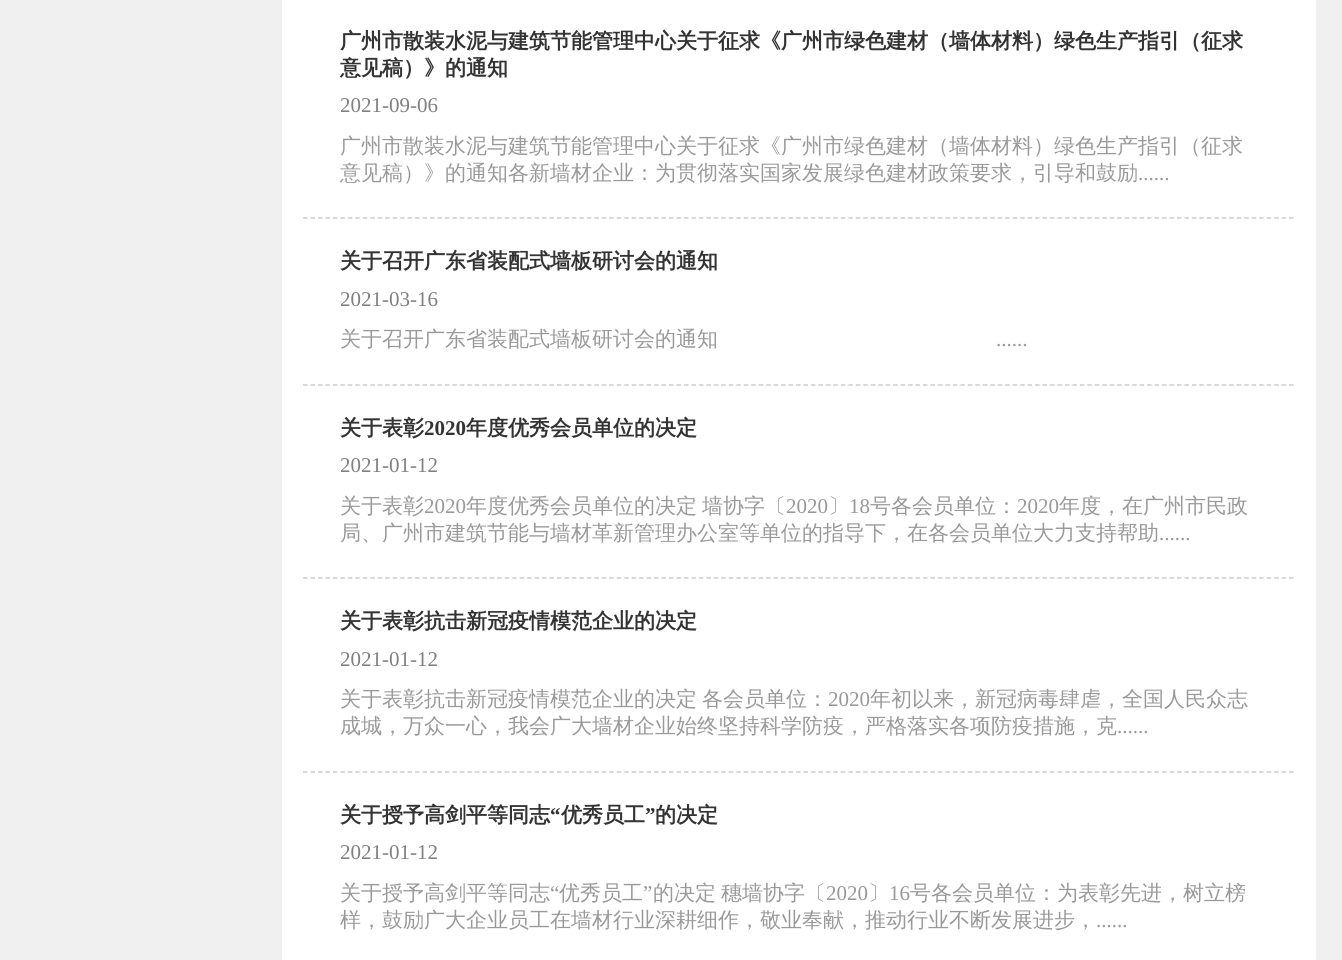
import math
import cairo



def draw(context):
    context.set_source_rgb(240 / 255, 240 / 255, 240 / 255)
    context.paint()
    context.set_source_rgb(1, 1, 1)
    context.rectangle(282, 0, 1034, 960)
    context.fill()
    context.new_path()
    context.move_to(303, 218)
    context.line_to(1294.5, 218)
    context.set_source_rgb(204 / 255, 204 / 255, 204 / 255)
    context.set_line_width(1.5)
    context.set_dash([4.5, 2.97])
    context.stroke()
    context.new_path()
    context.move_to(303, 385)
    context.line_to(1294.5, 385)
    context.stroke()
    context.new_path()
    context.move_to(303, 578)
    context.line_to(1294.5, 578)
    context.stroke()
    context.new_path()
    context.move_to(303, 772)
    context.line_to(1294.5, 772)
    context.stroke()
    context.select_font_face("WenQuanYi Zen Hei", cairo.FontSlant.NORMAL, cairo.FontWeight.BOLD)
    context.set_font_size(21)
    context.set_source_rgb(51 / 255, 51 / 255, 51 / 255)
    context.move_to(340, 48)
    context.show_text("广州市散装水泥与建筑节能管理中心关于征求《广州市绿色建材（墙体材料）绿色生产指引（征求")
    context.move_to(340, 75)
    context.show_text("意见稿）》的通知")
    context.select_font_face("Liberation Serif")
    context.set_source_rgb(128 / 255, 128 / 255, 128 / 255)
    context.move_to(340, 112)
    context.show_text("2021-09-06")
    context.select_font_face("WenQuanYi Zen Hei Medium")
    context.set_source_rgb(153 / 255, 153 / 255, 153 / 255)
    context.move_to(340, 153)
    context.show_text("广州市散装水泥与建筑节能管理中心关于征求《广州市绿色建材（墙体材料）绿色生产指引（征求")
    context.move_to(340, 180)
    context.show_text("意见稿）》的通知各新墙材企业：为贯彻落实国家发展绿色建材政策要求，引导和鼓励")
    context.select_font_face("Liberation Serif")
    context.move_to(1138, 180)
    context.show_text("......")
    context.select_font_face("WenQuanYi Zen Hei", cairo.FontSlant.NORMAL, cairo.FontWeight.BOLD)
    context.set_source_rgb(51 / 255, 51 / 255, 51 / 255)
    context.move_to(340, 268)
    context.show_text("关于召开广东省装配式墙板研讨会的通知")
    context.select_font_face("Liberation Serif")
    context.set_source_rgb(128 / 255, 128 / 255, 128 / 255)
    context.move_to(340, 306)
    context.show_text("2021-03-16")
    context.select_font_face("WenQuanYi Zen Hei Medium")
    context.set_source_rgb(153 / 255, 153 / 255, 153 / 255)
    context.move_to(340, 346)
    context.show_text("关于召开广东省装配式墙板研讨会的通知")
    context.select_font_face("Liberation Serif")
    context.move_to(996, 346)
    context.show_text("......")
    context.select_font_face("WenQuanYi Zen Hei", cairo.FontSlant.NORMAL, cairo.FontWeight.BOLD)
    context.set_source_rgb(51 / 255, 51 / 255, 51 / 255)
    context.move_to(340, 435)
    context.show_text("关于表彰")
    context.select_font_face("Liberation Serif", cairo.FontSlant.NORMAL, cairo.FontWeight.BOLD)
    context.move_to(424, 435)
    context.show_text("2020")
    context.select_font_face("WenQuanYi Zen Hei", cairo.FontSlant.NORMAL, cairo.FontWeight.BOLD)
    context.move_to(466, 435)
    context.show_text("年度优秀会员单位的决定")
    context.select_font_face("Liberation Serif")
    context.set_source_rgb(128 / 255, 128 / 255, 128 / 255)
    context.move_to(340, 472)
    context.show_text("2021-01-12")
    context.select_font_face("WenQuanYi Zen Hei Medium")
    context.set_source_rgb(153 / 255, 153 / 255, 153 / 255)
    context.move_to(340, 513)
    context.show_text("关于表彰")
    context.select_font_face("Liberation Serif")
    context.move_to(424, 513)
    context.show_text("2020")
    context.select_font_face("WenQuanYi Zen Hei Medium")
    context.move_to(466, 513)
    context.show_text("年度优秀会员单位的决定")
    context.move_to(702, 513)
    context.show_text("墙协字〔")
    context.select_font_face("Liberation Serif")
    context.move_to(786, 513)
    context.show_text("2020")
    context.select_font_face("WenQuanYi Zen Hei Medium")
    context.move_to(828, 513)
    context.show_text("〕")
    context.select_font_face("Liberation Serif")
    context.move_to(849, 513)
    context.show_text("18")
    context.select_font_face("WenQuanYi Zen Hei Medium")
    context.move_to(870, 513)
    context.show_text("号各会员单位：")
    context.select_font_face("Liberation Serif")
    context.move_to(1017, 513)
    context.show_text("2020")
    context.select_font_face("WenQuanYi Zen Hei Medium")
    context.move_to(1059, 513)
    context.show_text("年度，在广州市民政")
    context.move_to(340, 540)
    context.show_text("局、广州市建筑节能与墙材革新管理办公室等单位的指导下，在各会员单位大力支持帮助")
    context.select_font_face("Liberation Serif")
    context.move_to(1159, 540)
    context.show_text("......")
    context.select_font_face("WenQuanYi Zen Hei", cairo.FontSlant.NORMAL, cairo.FontWeight.BOLD)
    context.set_source_rgb(51 / 255, 51 / 255, 51 / 255)
    context.move_to(340, 628)
    context.show_text("关于表彰抗击新冠疫情模范企业的决定")
    context.select_font_face("Liberation Serif")
    context.set_source_rgb(128 / 255, 128 / 255, 128 / 255)
    context.move_to(340, 666)
    context.show_text("2021-01-12")
    context.select_font_face("WenQuanYi Zen Hei Medium")
    context.set_source_rgb(153 / 255, 153 / 255, 153 / 255)
    context.move_to(340, 706)
    context.show_text("关于表彰抗击新冠疫情模范企业的决定")
    context.move_to(702, 706)
    context.show_text("各会员单位：")
    context.select_font_face("Liberation Serif")
    context.move_to(828, 706)
    context.show_text("2020")
    context.select_font_face("WenQuanYi Zen Hei Medium")
    context.move_to(870, 706)
    context.show_text("年初以来，新冠病毒肆虐，全国人民众志")
    context.move_to(340, 733)
    context.show_text("成城，万众一心，我会广大墙材企业始终坚持科学防疫，严格落实各项防疫措施，克")
    context.select_font_face("Liberation Serif")
    context.move_to(1117, 733)
    context.show_text("......")
    context.select_font_face("WenQuanYi Zen Hei", cairo.FontSlant.NORMAL, cairo.FontWeight.BOLD)
    context.set_source_rgb(51 / 255, 51 / 255, 51 / 255)
    context.move_to(340, 822)
    context.show_text("关于授予高剑平等同志")
    context.select_font_face("Liberation Serif", cairo.FontSlant.NORMAL, cairo.FontWeight.BOLD)
    context.move_to(550, 822)
    context.show_text("“")
    context.select_font_face("WenQuanYi Zen Hei", cairo.FontSlant.NORMAL, cairo.FontWeight.BOLD)
    context.move_to(561, 822)
    context.show_text("优秀员工")
    context.select_font_face("Liberation Serif", cairo.FontSlant.NORMAL, cairo.FontWeight.BOLD)
    context.move_to(645, 822)
    context.show_text("”")
    context.select_font_face("WenQuanYi Zen Hei", cairo.FontSlant.NORMAL, cairo.FontWeight.BOLD)
    context.move_to(655, 822)
    context.show_text("的决定")
    context.select_font_face("Liberation Serif")
    context.set_source_rgb(128 / 255, 128 / 255, 128 / 255)
    context.move_to(340, 859)
    context.show_text("2021-01-12")
    context.select_font_face("WenQuanYi Zen Hei Medium")
    context.set_source_rgb(153 / 255, 153 / 255, 153 / 255)
    context.move_to(340, 900)
    context.show_text("关于授予高剑平等同志")
    context.select_font_face("Liberation Serif")
    context.move_to(550, 900)
    context.show_text("“")
    context.select_font_face("WenQuanYi Zen Hei Medium")
    context.move_to(559, 900)
    context.show_text("优秀员工")
    context.select_font_face("Liberation Serif")
    context.move_to(643, 900)
    context.show_text("”")
    context.select_font_face("WenQuanYi Zen Hei Medium")
    context.move_to(653, 900)
    context.show_text("的决定")
    context.move_to(721, 900)
    context.show_text("穗墙协字〔")
    context.select_font_face("Liberation Serif")
    context.move_to(826, 900)
    context.show_text("2020")
    context.select_font_face("WenQuanYi Zen Hei Medium")
    context.move_to(868, 900)
    context.show_text("〕")
    context.select_font_face("Liberation Serif")
    context.move_to(889, 900)
    context.show_text("16")
    context.select_font_face("WenQuanYi Zen Hei Medium")
    context.move_to(910, 900)
    context.show_text("号各会员单位：为表彰先进，树立榜")
    context.move_to(340, 927)
    context.show_text("样，鼓励广大企业员工在墙材行业深耕细作，敬业奉献，推动行业不断发展进步，")
    context.select_font_face("Liberation Serif")
    context.move_to(1096, 927)
    context.show_text("......")


surface = cairo.ImageSurface(cairo.Format.RGB24, 1342, 960)
context = cairo.Context(surface)
options = cairo.FontOptions()
options.set_hint_metrics(cairo.HintMetrics.OFF)
options.set_hint_style(cairo.HintStyle.NONE)
context.set_font_options(options)
context.set_miter_limit(4)
draw(context)
surface.write_to_png("out.png")
